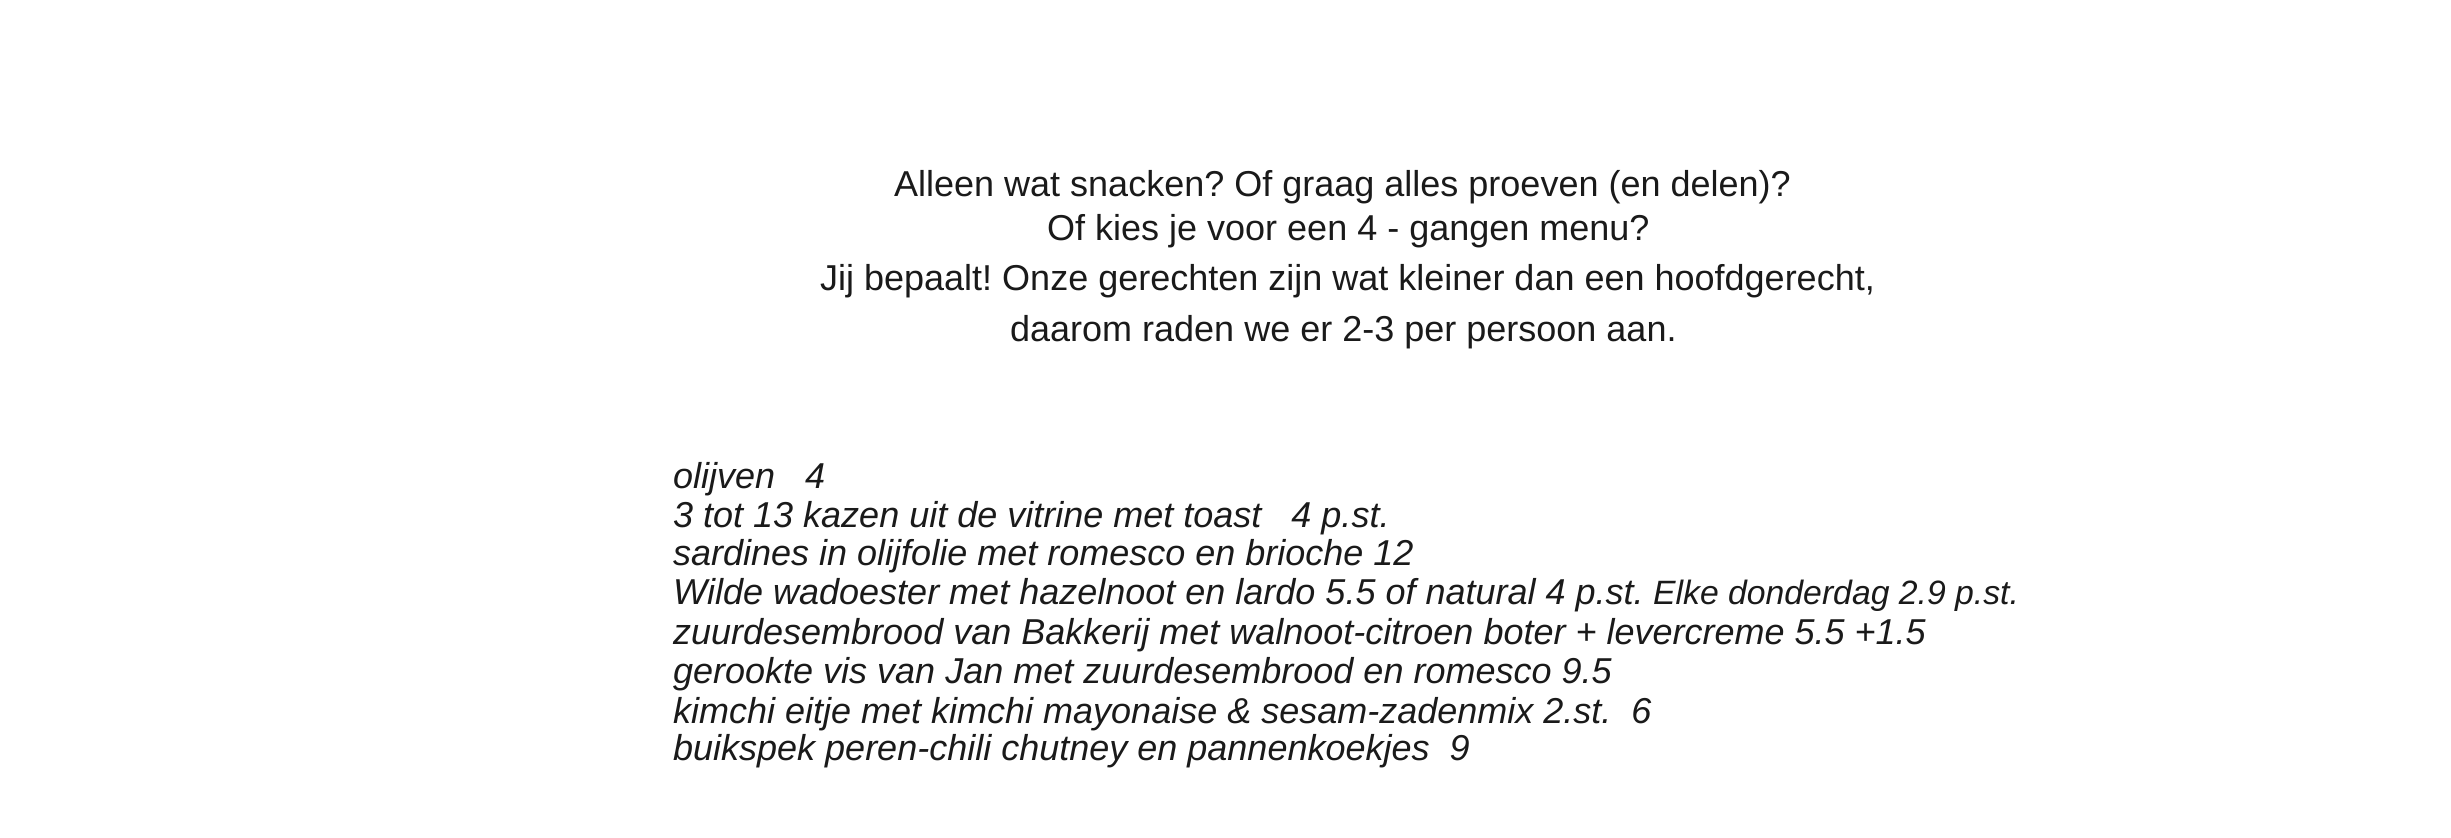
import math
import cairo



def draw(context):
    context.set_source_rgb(1, 1, 1)
    context.paint()
    context.select_font_face("Liberation Sans")
    context.set_font_size(36)
    context.set_source_rgb(26 / 255, 26 / 255, 26 / 255)
    context.move_to(894, 196)
    context.show_text("Alleen wat snacken? Of graag alles proeven (en delen)?")
    context.move_to(1047, 240)
    context.show_text("Of kies je voor een 4 - gangen menu?")
    context.move_to(820, 290)
    context.show_text("Jij bepaalt! Onze gerechten zijn wat kleiner dan een hoofdgerecht,")
    context.move_to(1010, 341)
    context.show_text("daarom raden we er 2-3 per persoon aan.")
    context.select_font_face("Liberation Sans", cairo.FontSlant.ITALIC)
    context.move_to(673, 488)
    context.show_text("olijven   4")
    context.move_to(673, 527)
    context.show_text("3 tot 13 kazen uit de vitrine met toast   4 p.st.")
    context.move_to(673, 565)
    context.show_text("sardines in olijfolie met romesco en brioche 12")
    context.move_to(673, 604)
    context.show_text("Wilde wadoester met hazelnoot en lardo 5.5 of natural 4 p.st.")
    context.set_font_size(33.75)
    context.move_to(1653, 604)
    context.show_text("Elke donderdag 2.9 p.st.")
    context.set_font_size(36)
    context.move_to(673, 644)
    context.show_text("zuurdesembrood van Bakkerij met walnoot-citroen boter + levercreme 5.5 +1.5")
    context.move_to(673, 683)
    context.show_text("gerookte vis van Jan met zuurdesembrood en romesco 9.5")
    context.move_to(673, 723)
    context.show_text("kimchi eitje met kimchi mayonaise & sesam-zadenmix 2.st.  6")
    context.move_to(673, 760)
    context.show_text("buikspek peren-chili chutney en pannenkoekjes  9")


surface = cairo.ImageSurface(cairo.Format.RGB24, 2451, 838)
context = cairo.Context(surface)
options = cairo.FontOptions()
options.set_hint_metrics(cairo.HintMetrics.OFF)
options.set_hint_style(cairo.HintStyle.NONE)
context.set_font_options(options)
context.set_miter_limit(4)
draw(context)
surface.write_to_png("out.png")
